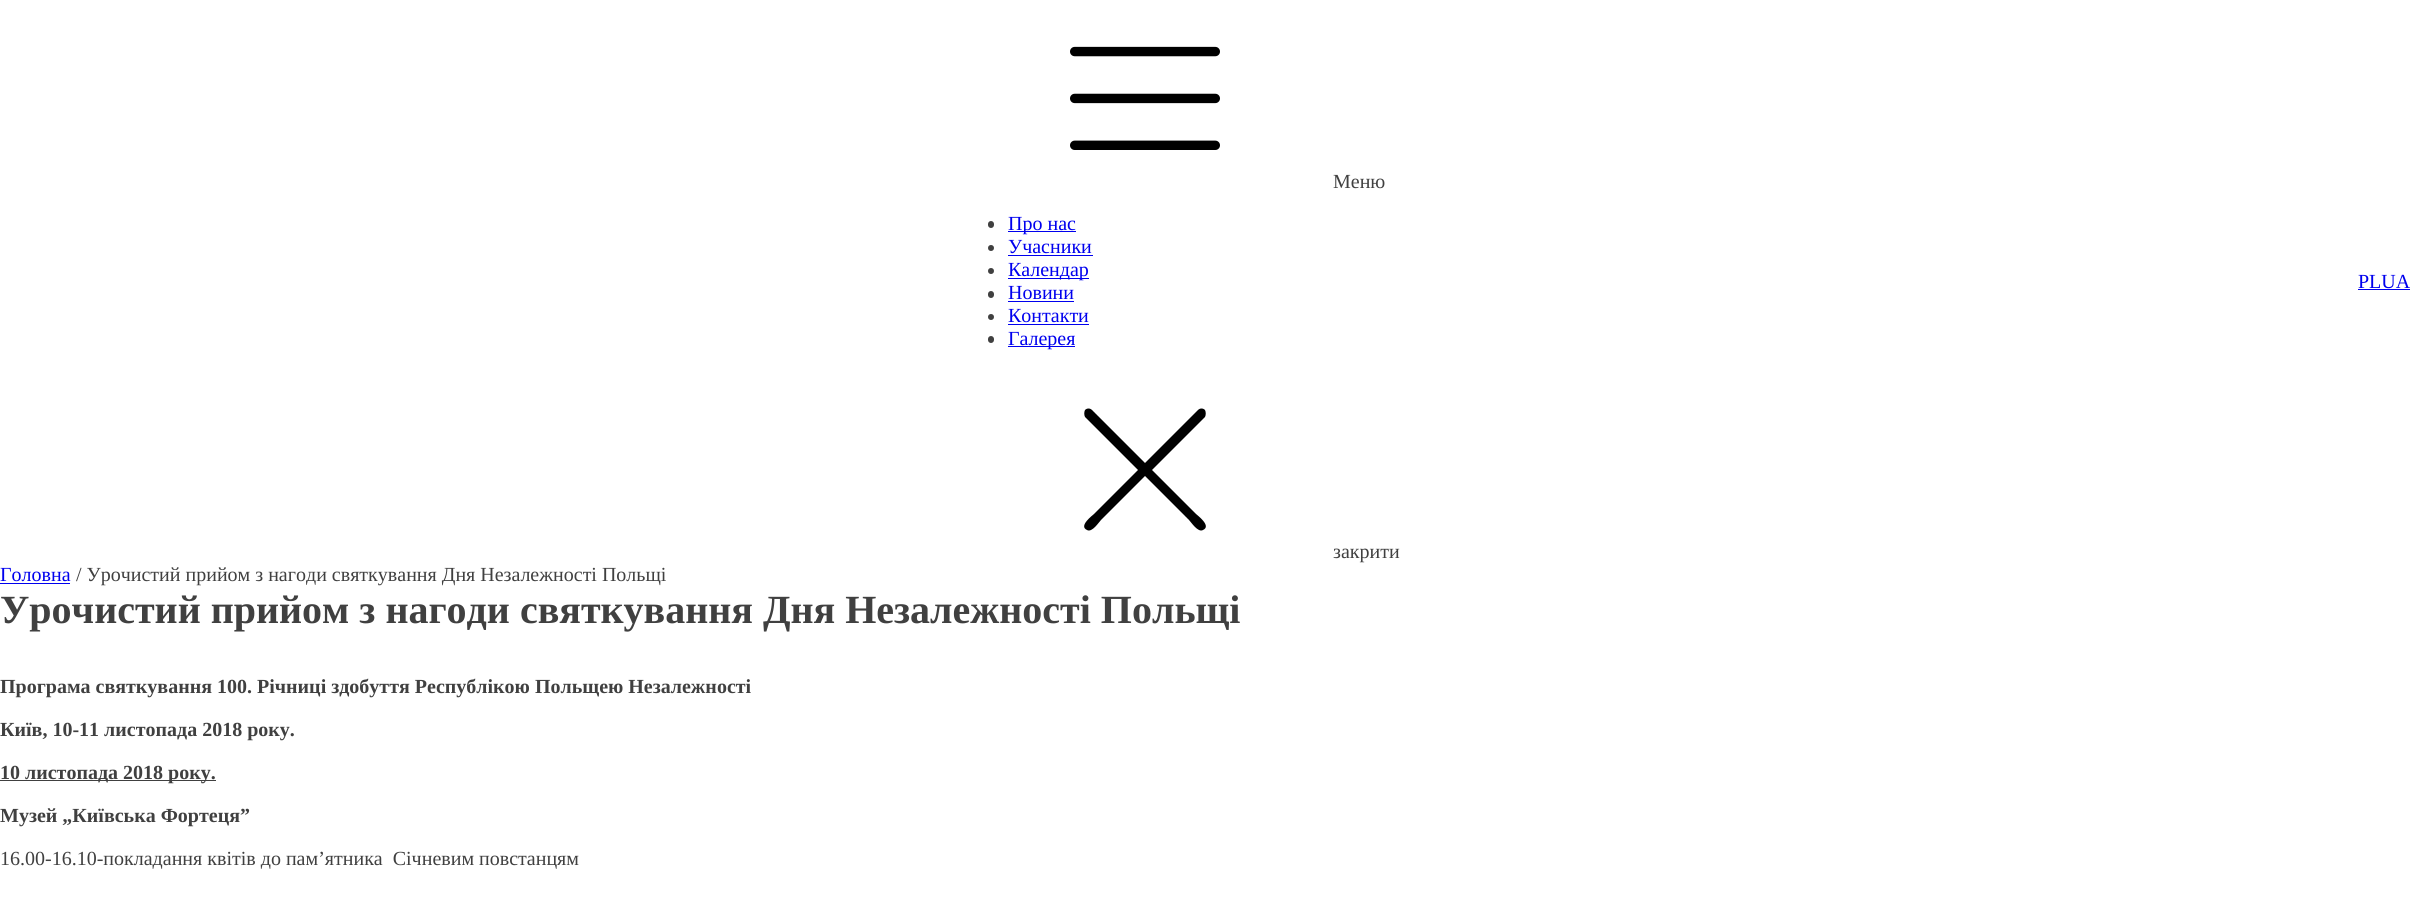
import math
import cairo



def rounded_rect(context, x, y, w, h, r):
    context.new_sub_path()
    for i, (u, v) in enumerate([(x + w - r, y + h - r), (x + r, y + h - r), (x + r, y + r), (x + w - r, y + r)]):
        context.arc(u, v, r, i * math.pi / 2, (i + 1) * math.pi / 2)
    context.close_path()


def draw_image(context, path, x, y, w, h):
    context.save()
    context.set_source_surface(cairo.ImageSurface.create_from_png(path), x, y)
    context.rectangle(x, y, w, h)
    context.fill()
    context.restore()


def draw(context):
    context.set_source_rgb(1, 1, 1)
    context.paint()
    draw_image(context, "images/1.png", 1070, 46, 150, 104)
    context.set_source_rgb(64 / 255, 64 / 255, 64 / 255)
    rounded_rect(context, 988, 221, 6, 7, 3)
    context.fill()
    context.set_source_rgb(0, 0, 238 / 255)
    context.rectangle(1008, 231, 68, 1)
    context.fill()
    context.set_source_rgb(64 / 255, 64 / 255, 64 / 255)
    context.arc(991, 248, 3, 0, 2 * math.pi)
    context.fill()
    context.set_source_rgb(0, 0, 238 / 255)
    context.rectangle(1008, 255, 85, 1)
    context.fill()
    context.set_source_rgb(64 / 255, 64 / 255, 64 / 255)
    context.arc(991, 271, 3, 0, 2 * math.pi)
    context.fill()
    context.set_source_rgb(0, 0, 238 / 255)
    context.rectangle(1008, 278, 81, 1)
    context.fill()
    context.set_source_rgb(64 / 255, 64 / 255, 64 / 255)
    rounded_rect(context, 988, 291, 6, 7, 3)
    context.fill()
    context.set_source_rgb(0, 0, 238 / 255)
    context.rectangle(1008, 301, 66, 1)
    context.fill()
    context.set_source_rgb(64 / 255, 64 / 255, 64 / 255)
    context.arc(991, 317, 3, 0, 2 * math.pi)
    context.fill()
    context.set_source_rgb(0, 0, 238 / 255)
    context.rectangle(1008, 324, 81, 1)
    context.fill()
    context.set_source_rgb(64 / 255, 64 / 255, 64 / 255)
    rounded_rect(context, 988, 336, 6, 7, 3)
    context.fill()
    context.set_source_rgb(0, 0, 238 / 255)
    context.rectangle(1008, 346, 67, 1)
    context.fill()
    context.set_source_rgb(0, 0, 0)
    context.new_path()
    context.move_to(1152, 470)
    context.line_to(1205, 417)
    context.curve_to(1206, 415, 1206, 412, 1205, 410)
    context.curve_to(1203, 408, 1200, 408, 1198, 410)
    context.line_to(1145, 463)
    context.line_to(1092, 410)
    context.curve_to(1090, 408, 1087, 408, 1085, 410)
    context.curve_to(1084, 412, 1084, 415, 1085, 417)
    context.line_to(1138, 470)
    context.line_to(1094, 514)
    context.curve_to(1093, 515, 1078, 526, 1087, 530)
    context.curve_to(1092, 533, 1099, 522, 1101, 520)
    context.line_to(1145, 476)
    context.line_to(1189, 520)
    context.curve_to(1191, 522, 1198, 533, 1203, 530)
    context.curve_to(1212, 526, 1197, 515, 1196, 514)
    context.close_path()
    context.fill()
    context.set_source_rgb(0, 0, 238 / 255)
    context.rectangle(2358, 289, 52, 1)
    context.fill()
    context.rectangle(0, 583, 70, 1)
    context.fill()
    context.set_source_rgb(64 / 255, 64 / 255, 64 / 255)
    context.rectangle(0, 780, 216, 1)
    context.fill()
    context.select_font_face("Liberation Serif")
    context.set_font_size(20)
    context.move_to(1333, 188)
    context.show_text("Меню")
    context.set_source_rgb(0, 0, 238 / 255)
    context.move_to(1008, 230)
    context.show_text("Про нас")
    context.move_to(1008, 253)
    context.show_text("Учасники")
    context.move_to(1008, 276)
    context.show_text("Календар")
    context.move_to(1008, 299)
    context.show_text("Новини")
    context.move_to(1008, 322)
    context.show_text("Контакти")
    context.move_to(1008, 345)
    context.show_text("Галерея")
    context.set_source_rgb(64 / 255, 64 / 255, 64 / 255)
    context.move_to(1333, 558)
    context.show_text("закрити")
    context.set_source_rgb(0, 0, 238 / 255)
    context.move_to(2358, 288)
    context.show_text("PLUA")
    context.move_to(0, 581)
    context.show_text("Головна")
    context.set_source_rgb(64 / 255, 64 / 255, 64 / 255)
    context.move_to(76, 581)
    context.show_text("/ Урочистий прийом з нагоди святкування Дня Незалежності Польщі")
    context.select_font_face("Liberation Serif", cairo.FontSlant.NORMAL, cairo.FontWeight.BOLD)
    context.set_font_size(40)
    context.move_to(0, 623)
    context.show_text("Урочистий прийом з нагоди святкування Дня Незалежності Польщі")
    context.set_font_size(20)
    context.move_to(0, 693)
    context.show_text("Програма святкування 100. Річниці здобуття Республікою Польщею Незалежності")
    context.move_to(0, 736)
    context.show_text("Київ, 10-11 листопада 2018 року.")
    context.move_to(0, 779)
    context.show_text("10 листопада 2018 року.")
    context.move_to(0, 822)
    context.show_text("Музей „Київська Фортеця”")
    context.select_font_face("Liberation Serif")
    context.move_to(0, 865)
    context.show_text("16.00-16.10-покладання квітів до пам’ятника  Січневим повстанцям")


surface = cairo.ImageSurface(cairo.Format.RGB24, 2410, 901)
context = cairo.Context(surface)
options = cairo.FontOptions()
options.set_hint_metrics(cairo.HintMetrics.OFF)
options.set_hint_style(cairo.HintStyle.NONE)
context.set_font_options(options)
context.set_miter_limit(4)
draw(context)
surface.write_to_png("out.png")
